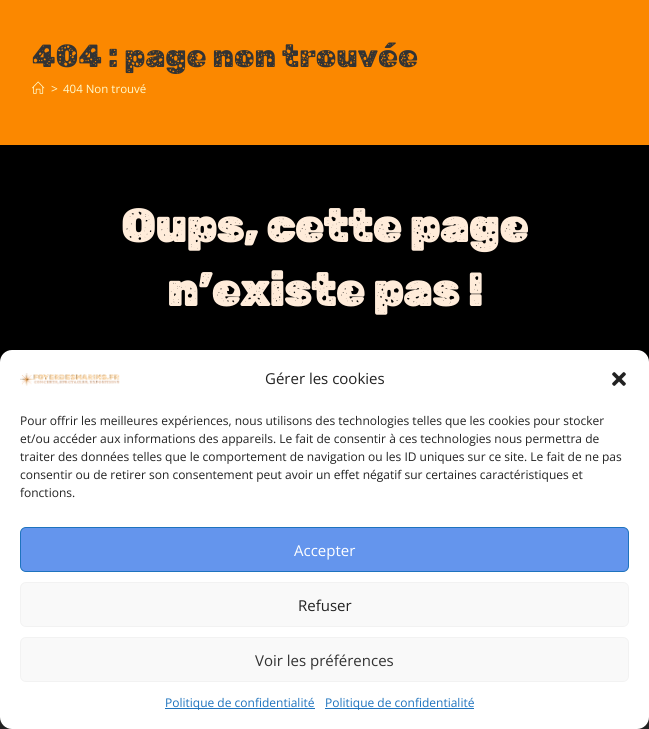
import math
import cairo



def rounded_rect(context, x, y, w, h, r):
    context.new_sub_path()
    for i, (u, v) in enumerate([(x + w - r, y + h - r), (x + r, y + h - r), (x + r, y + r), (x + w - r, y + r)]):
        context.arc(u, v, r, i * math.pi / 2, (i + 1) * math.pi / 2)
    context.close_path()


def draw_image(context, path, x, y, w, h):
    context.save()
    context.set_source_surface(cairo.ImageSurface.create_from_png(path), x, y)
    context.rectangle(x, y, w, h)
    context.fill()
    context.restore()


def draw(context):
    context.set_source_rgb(0, 0, 0)
    context.paint()
    context.set_source_rgb(251 / 255, 136 / 255, 0)
    context.rectangle(0, 0, 649, 145)
    context.fill()
    draw_image(context, "images/1.png", 32, 81, 13, 13)
    context.set_source_rgb(34 / 255, 34 / 255, 34 / 255)
    context.rectangle(0, 717, 649, 12)
    context.fill()
    context.set_source_rgb(1, 1, 1)
    rounded_rect(context, 0, 350, 649, 379, 12)
    context.fill()
    draw_image(context, "images/2.png", 20, 373, 100, 13)
    draw_image(context, "images/3.png", 612, 372, 14, 14)
    context.set_source_rgb(100 / 255, 149 / 255, 237 / 255)
    rounded_rect(context, 20.5, 527.5, 608, 44, 5.5)
    context.fill_preserve()
    context.set_source_rgb(30 / 255, 115 / 255, 190 / 255)
    context.set_line_width(1)
    context.stroke()
    context.set_source_rgb(249 / 255, 249 / 255, 249 / 255)
    rounded_rect(context, 20.5, 582.5, 608, 44, 5.5)
    context.fill_preserve()
    context.set_source_rgb(242 / 255, 242 / 255, 242 / 255)
    context.stroke()
    context.set_source_rgb(249 / 255, 249 / 255, 249 / 255)
    rounded_rect(context, 20.5, 637.5, 608, 44, 5.5)
    context.fill_preserve()
    context.set_source_rgb(242 / 255, 242 / 255, 242 / 255)
    context.stroke()
    context.set_source_rgb(30 / 255, 115 / 255, 190 / 255)
    context.rectangle(165, 708, 150, 1)
    context.fill()
    context.rectangle(325, 708, 149, 1)
    context.fill()
    context.select_font_face("Rubik Moonrocks")
    context.set_font_size(32)
    context.set_source_rgb(51 / 255, 51 / 255, 51 / 255)
    context.move_to(32, 67)
    context.show_text("404 : page non trouvée")
    context.select_font_face("Open Sans")
    context.set_font_size(12)
    context.set_source_rgb(1, 250 / 255, 205 / 255)
    context.move_to(51, 93)
    context.show_text(">")
    context.set_font_size(11.5)
    context.move_to(63, 93)
    context.show_text("404 Non trouvé")
    context.select_font_face("Rubik Moonrocks", cairo.FontSlant.NORMAL, cairo.FontWeight.BOLD)
    context.set_font_size(46)
    context.set_source_rgb(1, 236 / 255, 218 / 255)
    context.move_to(121, 242)
    context.show_text("Oups, cette page")
    context.move_to(167, 306)
    context.show_text("n’existe pas !")
    context.select_font_face("Open Sans")
    context.set_font_size(15)
    context.set_source_rgb(34 / 255, 34 / 255, 34 / 255)
    context.move_to(265, 384)
    context.show_text("Gérer les cookies")
    context.set_font_size(12)
    context.move_to(20, 425)
    context.show_text("Pour offrir les meilleures expériences, nous utilisons des technologies telles que les cookies pour stocker")
    context.move_to(20, 443)
    context.show_text("et/ou accéder aux informations des appareils. Le fait de consentir à ces technologies nous permettra de")
    context.move_to(20, 461)
    context.show_text("traiter des données telles que le comportement de navigation ou les ID uniques sur ce site. Le fait de ne pas")
    context.move_to(20, 479)
    context.show_text("consentir ou de retirer son consentement peut avoir un effet négatif sur certaines caractéristiques et")
    context.move_to(20, 497)
    context.show_text("fonctions.")
    context.set_font_size(15)
    context.set_source_rgb(1, 1, 1)
    context.move_to(294, 556)
    context.show_text("Accepter")
    context.set_source_rgb(34 / 255, 34 / 255, 34 / 255)
    context.move_to(298, 611)
    context.show_text("Refuser")
    context.set_source_rgb(51 / 255, 51 / 255, 51 / 255)
    context.move_to(255, 666)
    context.show_text("Voir les préférences")
    context.set_font_size(12)
    context.set_source_rgb(30 / 255, 115 / 255, 190 / 255)
    context.move_to(165, 707)
    context.show_text("Politique de confidentialité")
    context.move_to(325, 707)
    context.show_text("Politique de confidentialité")


surface = cairo.ImageSurface(cairo.Format.RGB24, 649, 729)
context = cairo.Context(surface)
options = cairo.FontOptions()
options.set_hint_metrics(cairo.HintMetrics.OFF)
options.set_hint_style(cairo.HintStyle.NONE)
context.set_font_options(options)
context.set_miter_limit(4)
draw(context)
surface.write_to_png("out.png")
